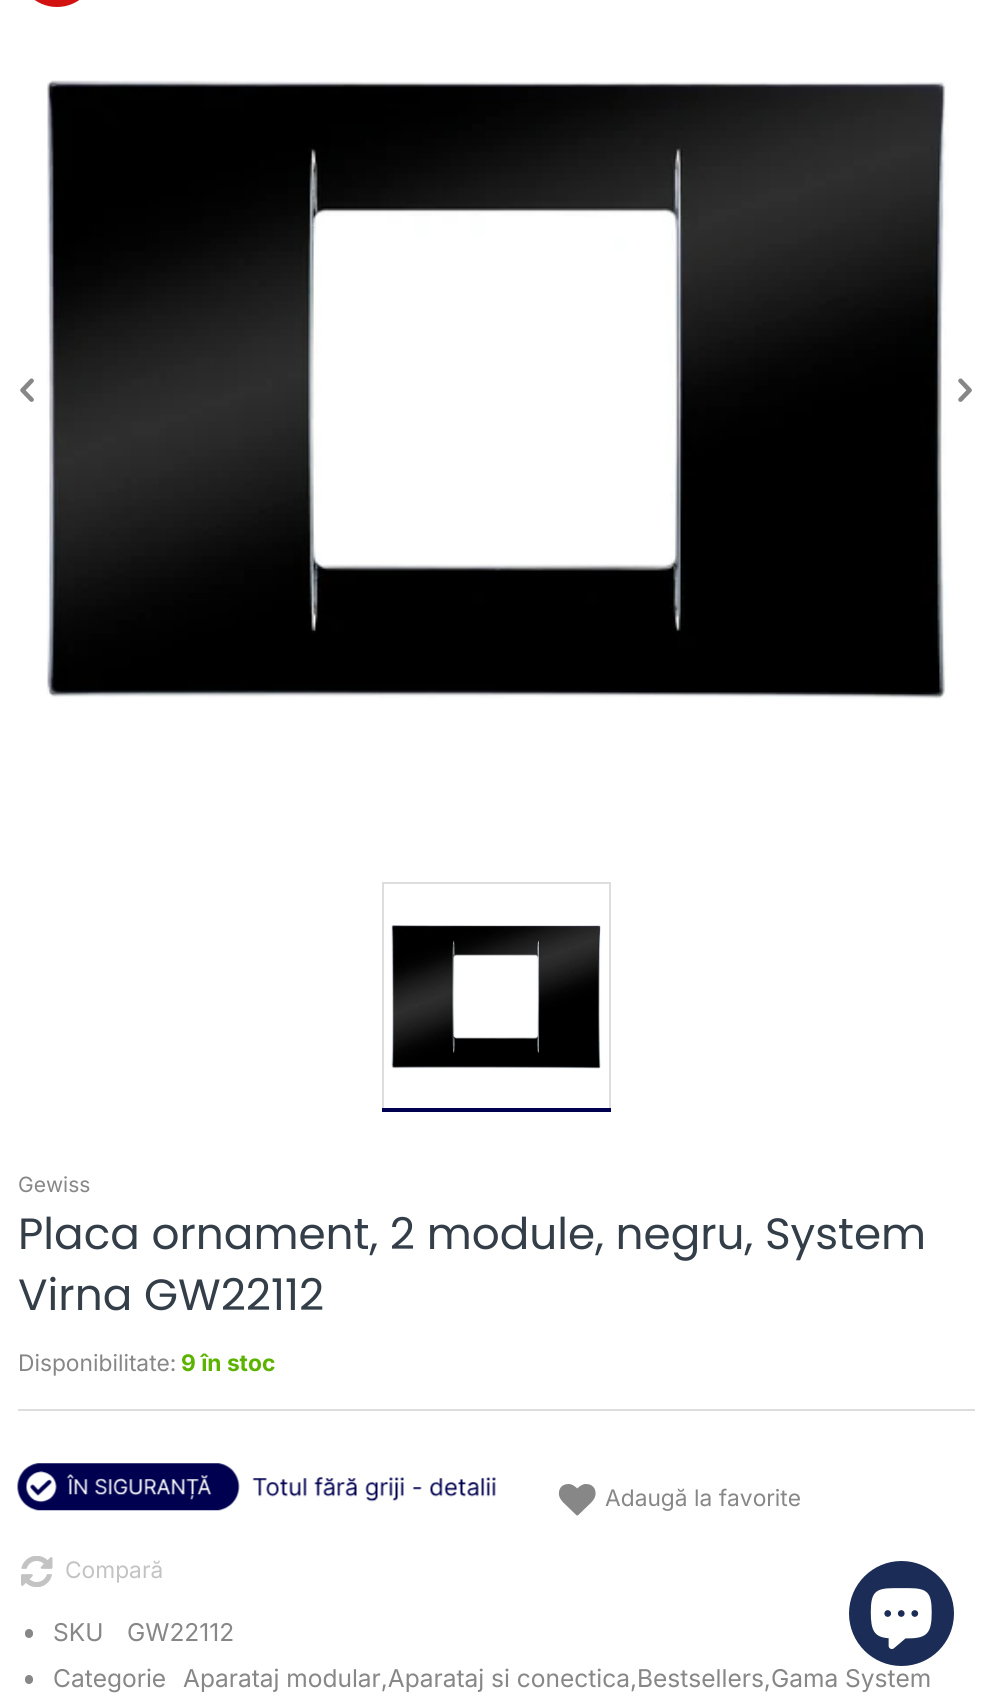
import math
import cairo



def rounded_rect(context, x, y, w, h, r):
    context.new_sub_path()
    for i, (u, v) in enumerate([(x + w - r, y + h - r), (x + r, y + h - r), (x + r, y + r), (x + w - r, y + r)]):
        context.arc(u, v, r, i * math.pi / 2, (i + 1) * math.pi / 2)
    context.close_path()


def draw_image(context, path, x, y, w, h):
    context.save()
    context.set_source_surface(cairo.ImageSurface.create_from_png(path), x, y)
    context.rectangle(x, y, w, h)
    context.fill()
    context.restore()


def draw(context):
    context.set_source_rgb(1, 1, 1)
    context.paint()
    context.set_source_rgb(210 / 255, 17 / 255, 17 / 255)
    rounded_rect(context, 18, -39, 78, 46, 39)
    context.fill()
    draw_image(context, "images/1.png", 46, 80, 903, 619)
    draw_image(context, "images/2.png", 20, 378, 14, 24)
    draw_image(context, "images/3.png", 958, 378, 14, 24)
    context.rectangle(383, 883, 227, 227)
    context.set_source_rgb(221 / 255, 221 / 255, 221 / 255)
    context.stroke()
    draw_image(context, "images/4.png", 391, 925, 210, 144)
    context.set_source_rgb(0, 0, 81 / 255)
    context.rectangle(382, 1108, 229, 4)
    context.fill()
    context.set_source_rgb(221 / 255, 221 / 255, 221 / 255)
    context.rectangle(18, 1409, 957, 2)
    context.fill()
    draw_image(context, "images/5.png", 17, 1463, 479, 48)
    draw_image(context, "images/6.png", 558, 1484, 38, 32)
    draw_image(context, "images/7.png", 21, 1556, 32, 31)
    context.set_source_rgb(135 / 255, 135 / 255, 135 / 255)
    rounded_rect(context, 25, 1629, 8, 9, 4)
    context.fill()
    rounded_rect(context, 25, 1675, 8, 9, 4)
    context.fill()
    context.set_source_rgb(27 / 255, 45 / 255, 86 / 255)
    context.arc(901.5, 1613.5, 52.5, 0, 2 * math.pi)
    context.fill()
    draw_image(context, "images/8.png", 870, 1588, 62, 61)
    context.select_font_face("Inter")
    context.set_font_size(21)
    context.set_source_rgb(135 / 255, 135 / 255, 135 / 255)
    context.move_to(18, 1192)
    context.show_text("Gewiss")
    context.select_font_face("Poppins")
    context.set_font_size(43.75)
    context.set_source_rgb(51 / 255, 62 / 255, 72 / 255)
    context.move_to(18, 1249)
    context.show_text("Placa ornament, 2 module, negru, System")
    context.move_to(18, 1310)
    context.show_text("Virna GW22112")
    context.select_font_face("Inter")
    context.set_font_size(22.75)
    context.set_source_rgb(135 / 255, 135 / 255, 135 / 255)
    context.move_to(18, 1371)
    context.show_text("Disponibilitate:")
    context.select_font_face("Inter", cairo.FontSlant.NORMAL, cairo.FontWeight.BOLD)
    context.set_source_rgb(91 / 255, 179 / 255, 0)
    context.move_to(181, 1371)
    context.show_text("9 în stoc")
    context.select_font_face("Inter")
    context.set_source_rgb(135 / 255, 135 / 255, 135 / 255)
    context.move_to(605, 1506)
    context.show_text("Adaugă la favorite")
    context.set_source_rgb(195 / 255, 195 / 255, 195 / 255)
    context.move_to(65, 1578)
    context.show_text("Compară")
    context.set_font_size(24.5)
    context.set_source_rgb(135 / 255, 135 / 255, 135 / 255)
    context.move_to(53, 1641)
    context.show_text("SKU")
    context.move_to(127, 1641)
    context.show_text("GW22112")
    context.move_to(53, 1687)
    context.show_text("Categorie")
    context.move_to(183, 1687)
    context.show_text("Aparataj modular,Aparataj si conectica,Bestsellers,Gama System")


surface = cairo.ImageSurface(cairo.Format.RGB24, 992, 1702)
context = cairo.Context(surface)
options = cairo.FontOptions()
options.set_hint_metrics(cairo.HintMetrics.OFF)
options.set_hint_style(cairo.HintStyle.NONE)
context.set_font_options(options)
context.set_miter_limit(4)
draw(context)
surface.write_to_png("out.png")
